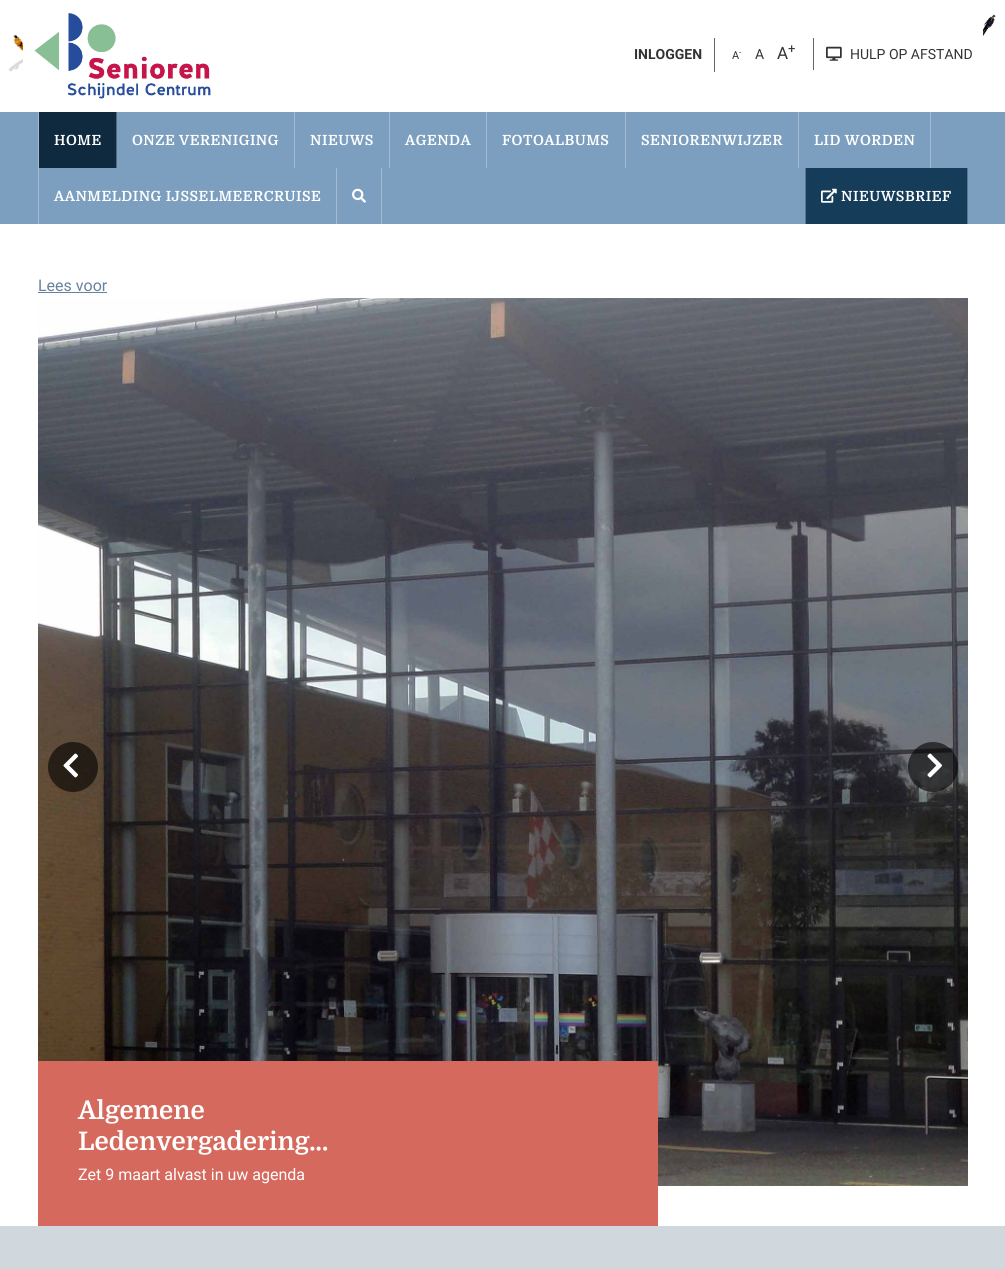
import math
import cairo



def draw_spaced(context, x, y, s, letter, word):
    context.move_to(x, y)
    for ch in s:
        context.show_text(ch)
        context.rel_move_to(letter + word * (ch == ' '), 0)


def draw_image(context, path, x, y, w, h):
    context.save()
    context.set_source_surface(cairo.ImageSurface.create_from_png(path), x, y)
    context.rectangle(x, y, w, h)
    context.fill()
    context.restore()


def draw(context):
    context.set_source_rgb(1, 1, 1)
    context.paint()
    draw_image(context, "images/1.png", 8, 12, 15, 100)
    draw_image(context, "images/2.png", 983, 5, 13, 100)
    draw_image(context, "images/3.png", 34, 13, 177, 86)
    context.set_source_rgb(102 / 255, 102 / 255, 102 / 255)
    context.rectangle(714, 38, 1, 34)
    context.fill()
    context.rectangle(813, 38, 1, 32)
    context.fill()
    draw_image(context, "images/4.png", 826, 46, 16, 15)
    context.set_source_rgb(125 / 255, 159 / 255, 191 / 255)
    context.rectangle(0, 112, 1005, 112)
    context.fill()
    context.set_source_rgb(164 / 255, 188 / 255, 210 / 255)
    context.rectangle(38, 112, 1, 112)
    context.fill()
    context.set_source_rgb(15 / 255, 42 / 255, 63 / 255)
    context.rectangle(39, 112, 77, 56)
    context.fill()
    context.set_source_rgb(87 / 255, 106 / 255, 121 / 255)
    context.rectangle(116, 112, 1, 56)
    context.fill()
    context.set_source_rgb(164 / 255, 188 / 255, 210 / 255)
    context.rectangle(294, 112, 1, 56)
    context.fill()
    context.rectangle(389, 112, 1, 56)
    context.fill()
    context.rectangle(486, 112, 1, 56)
    context.fill()
    context.rectangle(625, 112, 1, 56)
    context.fill()
    context.rectangle(798, 112, 1, 56)
    context.fill()
    context.rectangle(930, 112, 1, 56)
    context.fill()
    context.rectangle(336, 168, 1, 56)
    context.fill()
    context.rectangle(381, 168, 1, 56)
    context.fill()
    draw_image(context, "images/5.png", 352, 188, 14, 15)
    context.set_source_rgb(21 / 255, 60 / 255, 89 / 255)
    context.rectangle(806, 168, 161, 56)
    context.fill()
    context.set_source_rgb(91 / 255, 119 / 255, 139 / 255)
    context.rectangle(805, 168, 1, 56)
    context.fill()
    context.rectangle(967, 168, 1, 56)
    context.fill()
    draw_image(context, "images/6.png", 821, 188, 16, 15)
    context.set_source_rgb(102 / 255, 130 / 255, 157 / 255)
    context.rectangle(38, 292, 69, 1)
    context.fill()
    draw_image(context, "images/9.png", 38, 298, 930, 888)
    context.set_source_rgba(0, 0, 0, 0.6)
    context.arc(73, 767, 25, 0, 2 * math.pi)
    context.fill()
    draw_image(context, "images/7.png", 63, 753, 15, 25)
    context.arc(933, 767, 25, 0, 2 * math.pi)
    context.fill()
    draw_image(context, "images/8.png", 927, 753, 15, 25)
    context.set_source_rgb(213 / 255, 105 / 255, 93 / 255)
    context.rectangle(38, 1061, 620, 165)
    context.fill()
    context.set_source_rgb(208 / 255, 216 / 255, 222 / 255)
    context.rectangle(0, 1226, 1005, 43)
    context.fill()
    context.select_font_face("Roboto", cairo.FontSlant.NORMAL, cairo.FontWeight.BOLD)
    context.set_font_size(14)
    context.set_source_rgb(51 / 255, 51 / 255, 51 / 255)
    context.move_to(634, 59)
    context.show_text("INLOGGEN")
    context.select_font_face("Roboto")
    context.set_font_size(11)
    context.move_to(732, 59)
    context.show_text("A")
    context.set_font_size(8)
    context.move_to(739, 55)
    context.show_text("-")
    context.set_font_size(14)
    context.move_to(755, 59)
    context.show_text("A")
    context.set_font_size(17)
    context.move_to(777, 59)
    context.show_text("A")
    context.set_font_size(13)
    context.move_to(788, 53)
    context.show_text("+")
    context.set_font_size(14)
    context.move_to(850, 59)
    context.show_text("HULP OP AFSTAND")
    context.select_font_face("Domine", cairo.FontSlant.NORMAL, cairo.FontWeight.BOLD)
    context.set_source_rgb(1, 1, 1)
    draw_spaced(context, 54, 145, "HOME", 0.5, 0)
    draw_spaced(context, 132, 145, "ONZE VERENIGING", 0.5, 0)
    draw_spaced(context, 310, 145, "NIEUWS", 0.5, 0)
    draw_spaced(context, 405, 145, "AGENDA", 0.5, 0)
    draw_spaced(context, 502, 145, "FOTOALBUMS", 0.5, 0)
    draw_spaced(context, 641, 145, "SENIORENWIJZER", 0.5, 0)
    draw_spaced(context, 814, 145, "LID WORDEN", 0.5, 0)
    draw_spaced(context, 54, 201, "AANMELDING IJSSELMEERCRUISE", 0.5, 0)
    draw_spaced(context, 841, 201, "NIEUWSBRIEF", 0.5, 0)
    context.select_font_face("Roboto")
    context.set_font_size(16)
    context.set_source_rgb(102 / 255, 130 / 255, 157 / 255)
    context.move_to(38, 291)
    context.show_text("Lees voor")
    context.select_font_face("Domine", cairo.FontSlant.NORMAL, cairo.FontWeight.BOLD)
    context.set_font_size(25.5)
    context.set_source_rgb(1, 1, 1)
    context.move_to(78, 1119)
    context.show_text("Algemene")
    context.move_to(78, 1150)
    context.show_text("Ledenvergadering...")
    context.select_font_face("Roboto")
    context.set_font_size(16)
    context.move_to(78, 1180)
    context.show_text("Zet 9 maart alvast in uw agenda")


surface = cairo.ImageSurface(cairo.Format.RGB24, 1005, 1269)
context = cairo.Context(surface)
options = cairo.FontOptions()
options.set_hint_metrics(cairo.HintMetrics.OFF)
options.set_hint_style(cairo.HintStyle.NONE)
context.set_font_options(options)
context.set_miter_limit(4)
draw(context)
surface.write_to_png("out.png")
